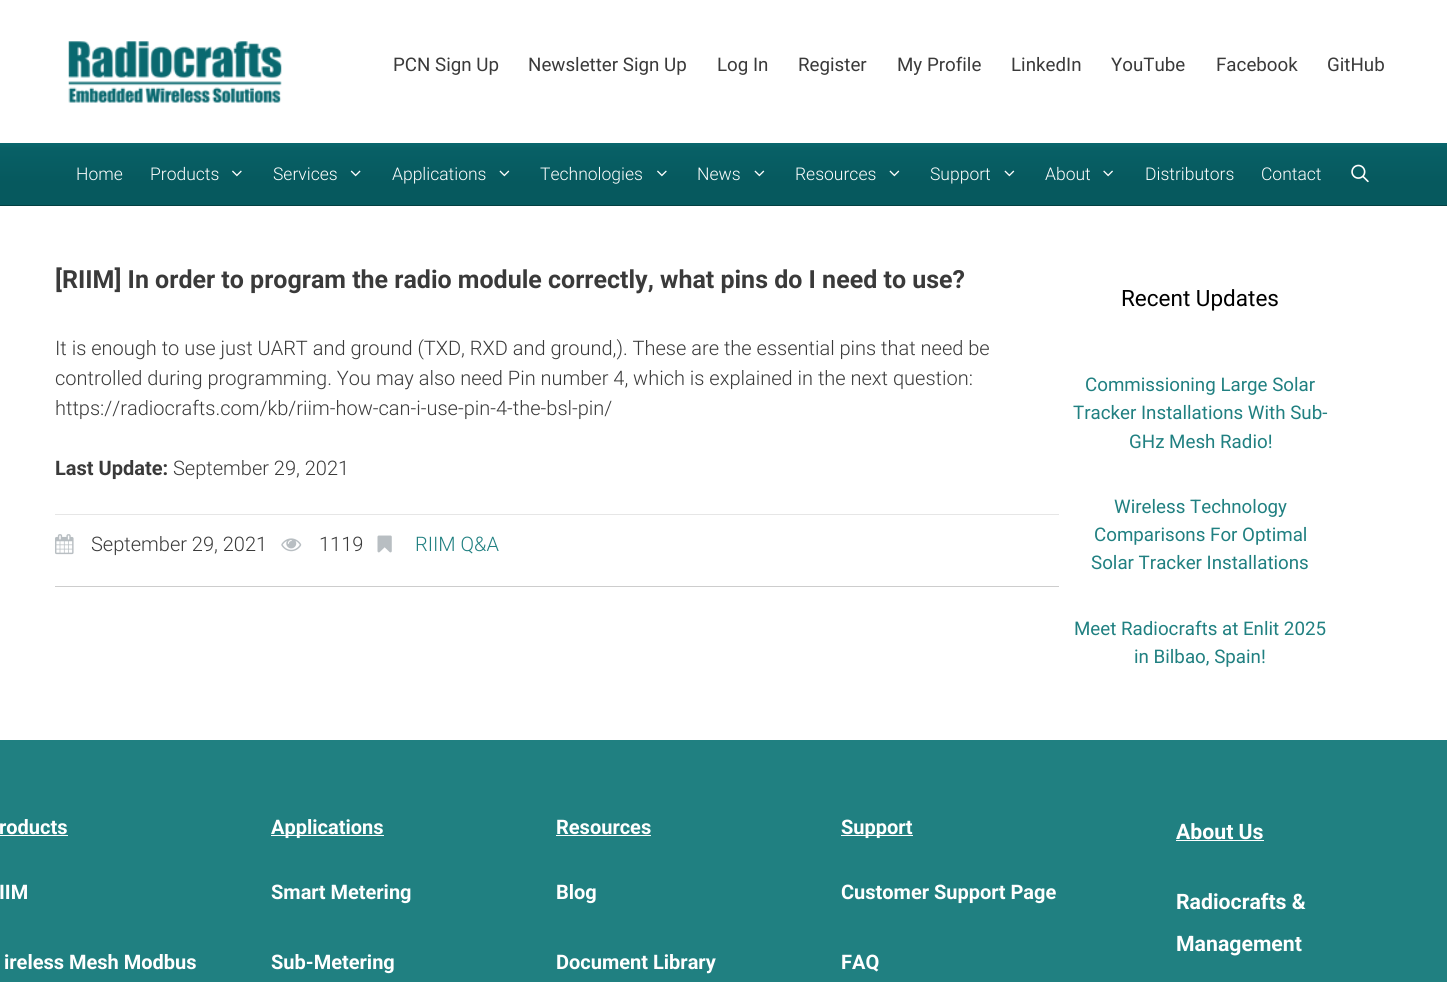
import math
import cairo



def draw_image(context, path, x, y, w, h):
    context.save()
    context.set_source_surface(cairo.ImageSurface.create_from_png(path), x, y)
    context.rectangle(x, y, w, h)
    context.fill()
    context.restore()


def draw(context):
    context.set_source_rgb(1, 1, 1)
    context.paint()
    draw_image(context, "images/1.png", 68, 41, 214, 62)
    gradient = cairo.LinearGradient(724, 142, 724, 205)
    gradient.add_color_stop_rgba(0, 10 / 255, 105 / 255, 112 / 255, 1)
    gradient.add_color_stop_rgba(0.1, 8 / 255, 96 / 255, 102 / 255, 1)
    gradient.add_color_stop_rgba(0.65, 6 / 255, 89 / 255, 94 / 255, 1)
    context.set_source(gradient)
    context.rectangle(0, 143, 1447, 62)
    context.fill()
    context.set_source_rgb(3 / 255, 64 / 255, 66 / 255)
    context.rectangle(0, 205, 1447, 1)
    context.fill()
    draw_image(context, "images/2.png", 232, 170, 10, 7)
    draw_image(context, "images/3.png", 350, 170, 11, 7)
    draw_image(context, "images/4.png", 499, 170, 11, 7)
    draw_image(context, "images/2.png", 657, 170, 10, 7)
    draw_image(context, "images/4.png", 754, 170, 11, 7)
    draw_image(context, "images/4.png", 889, 170, 11, 7)
    draw_image(context, "images/4.png", 1004, 170, 11, 7)
    draw_image(context, "images/5.png", 1103, 170, 10, 7)
    draw_image(context, "images/6.png", 1351, 164, 18, 19)
    context.set_source_rgb(205 / 255, 205 / 255, 205 / 255)
    context.rectangle(55, 586, 1004, 1)
    context.fill()
    context.set_source_rgb(230 / 255, 230 / 255, 230 / 255)
    context.rectangle(55, 514, 1004, 1)
    context.fill()
    draw_image(context, "images/7.png", 55, 534, 19, 21)
    draw_image(context, "images/8.png", 281, 538, 21, 14)
    draw_image(context, "images/9.png", 377, 535, 15, 18)
    context.set_source_rgb(32 / 255, 128 / 255, 129 / 255)
    context.rectangle(0, 740, 1447, 242)
    context.fill()
    context.set_source_rgb(1, 1, 1)
    context.rectangle(0, 835, 68, 1)
    context.fill()
    context.rectangle(271, 835, 113, 1)
    context.fill()
    context.rectangle(556, 835, 95, 1)
    context.fill()
    context.rectangle(841, 835, 72, 1)
    context.fill()
    context.rectangle(1176, 840, 88, 1)
    context.fill()
    context.select_font_face("Roboto")
    context.set_font_size(18.75)
    context.set_source_rgb(58 / 255, 58 / 255, 58 / 255)
    context.move_to(393, 71)
    context.show_text("PCN Sign Up")
    context.move_to(528, 71)
    context.show_text("Newsletter Sign Up")
    context.move_to(717, 71)
    context.show_text("Log In")
    context.move_to(798, 71)
    context.show_text("Register")
    context.move_to(897, 71)
    context.show_text("My Profile")
    context.move_to(1011, 71)
    context.show_text("LinkedIn")
    context.move_to(1111, 71)
    context.show_text("YouTube")
    context.move_to(1216, 71)
    context.show_text("Facebook")
    context.move_to(1327, 71)
    context.show_text("GitHub")
    context.select_font_face("Roboto Light")
    context.set_font_size(17.5)
    context.set_source_rgb(1, 1, 1)
    context.move_to(76, 180)
    context.show_text("Home")
    context.move_to(150, 180)
    context.show_text("Products")
    context.move_to(273, 180)
    context.show_text("Services")
    context.move_to(392, 180)
    context.show_text("Applications")
    context.move_to(540, 180)
    context.show_text("Technologies")
    context.move_to(697, 180)
    context.show_text("News")
    context.move_to(795, 180)
    context.show_text("Resources")
    context.move_to(930, 180)
    context.show_text("Support")
    context.move_to(1045, 180)
    context.show_text("About")
    context.move_to(1145, 180)
    context.show_text("Distributors")
    context.move_to(1261, 180)
    context.show_text("Contact")
    context.select_font_face("Roboto", cairo.FontSlant.NORMAL, cairo.FontWeight.BOLD)
    context.set_font_size(25)
    context.set_source_rgb(58 / 255, 58 / 255, 58 / 255)
    context.move_to(55, 288)
    context.show_text("[RIIM] In order to program the radio module correctly, what pins do I need to use?")
    context.select_font_face("Roboto Light")
    context.set_font_size(20)
    context.move_to(55, 355)
    context.show_text("It is enough to use just UART and ground (TXD, RXD and ground,). These are the essential pins that need be")
    context.move_to(55, 385)
    context.show_text("controlled during programming. You may also need Pin number 4, which is explained in the next question:")
    context.move_to(55, 415)
    context.show_text("https://radiocrafts.com/kb/riim-how-can-i-use-pin-4-the-bsl-pin/")
    context.select_font_face("Roboto", cairo.FontSlant.NORMAL, cairo.FontWeight.BOLD)
    context.move_to(55, 475)
    context.show_text("Last Update:")
    context.select_font_face("Roboto Light")
    context.move_to(173, 475)
    context.show_text("September 29, 2021")
    context.move_to(91, 551)
    context.show_text("September 29, 2021")
    context.move_to(319, 551)
    context.show_text("1119")
    context.set_source_rgb(32 / 255, 128 / 255, 129 / 255)
    context.move_to(415, 551)
    context.show_text("RIIM Q&A")
    context.select_font_face("Roboto")
    context.set_font_size(22.5)
    context.set_source_rgb(0, 0, 0)
    context.move_to(1121, 306)
    context.show_text("Recent Updates")
    context.set_font_size(18.75)
    context.set_source_rgb(32 / 255, 128 / 255, 129 / 255)
    context.move_to(1085, 391)
    context.show_text("Commissioning Large Solar")
    context.move_to(1073, 419)
    context.show_text("Tracker Installations With Sub-")
    context.move_to(1129, 448)
    context.show_text("GHz Mesh Radio!")
    context.move_to(1114, 513)
    context.show_text("Wireless Technology")
    context.move_to(1094, 541)
    context.show_text("Comparisons For Optimal")
    context.move_to(1091, 569)
    context.show_text("Solar Tracker Installations")
    context.move_to(1074, 635)
    context.show_text("Meet Radiocrafts at Enlit 2025")
    context.move_to(1134, 663)
    context.show_text("in Bilbao, Spain!")
    context.select_font_face("Roboto", cairo.FontSlant.NORMAL, cairo.FontWeight.BOLD)
    context.set_font_size(20)
    context.set_source_rgb(1, 1, 1)
    context.move_to(-1, 834)
    context.show_text("roducts")
    context.move_to(-1, 899)
    context.show_text("IIM")
    context.move_to(4, 969)
    context.show_text("ireless Mesh Modbus")
    context.move_to(271, 834)
    context.show_text("Applications")
    context.move_to(271, 899)
    context.show_text("Smart Metering")
    context.move_to(271, 969)
    context.show_text("Sub-Metering")
    context.move_to(556, 834)
    context.show_text("Resources")
    context.move_to(556, 899)
    context.show_text("Blog")
    context.move_to(556, 969)
    context.show_text("Document Library")
    context.move_to(841, 834)
    context.show_text("Support")
    context.move_to(841, 899)
    context.show_text("Customer Support Page")
    context.move_to(841, 969)
    context.show_text("FAQ")
    context.set_font_size(21.25)
    context.move_to(1176, 839)
    context.show_text("About Us")
    context.move_to(1176, 909)
    context.show_text("Radiocrafts &")
    context.move_to(1176, 951)
    context.show_text("Management")


surface = cairo.ImageSurface(cairo.Format.RGB24, 1447, 982)
context = cairo.Context(surface)
options = cairo.FontOptions()
options.set_hint_metrics(cairo.HintMetrics.OFF)
options.set_hint_style(cairo.HintStyle.NONE)
context.set_font_options(options)
context.set_miter_limit(4)
draw(context)
surface.write_to_png("out.png")
